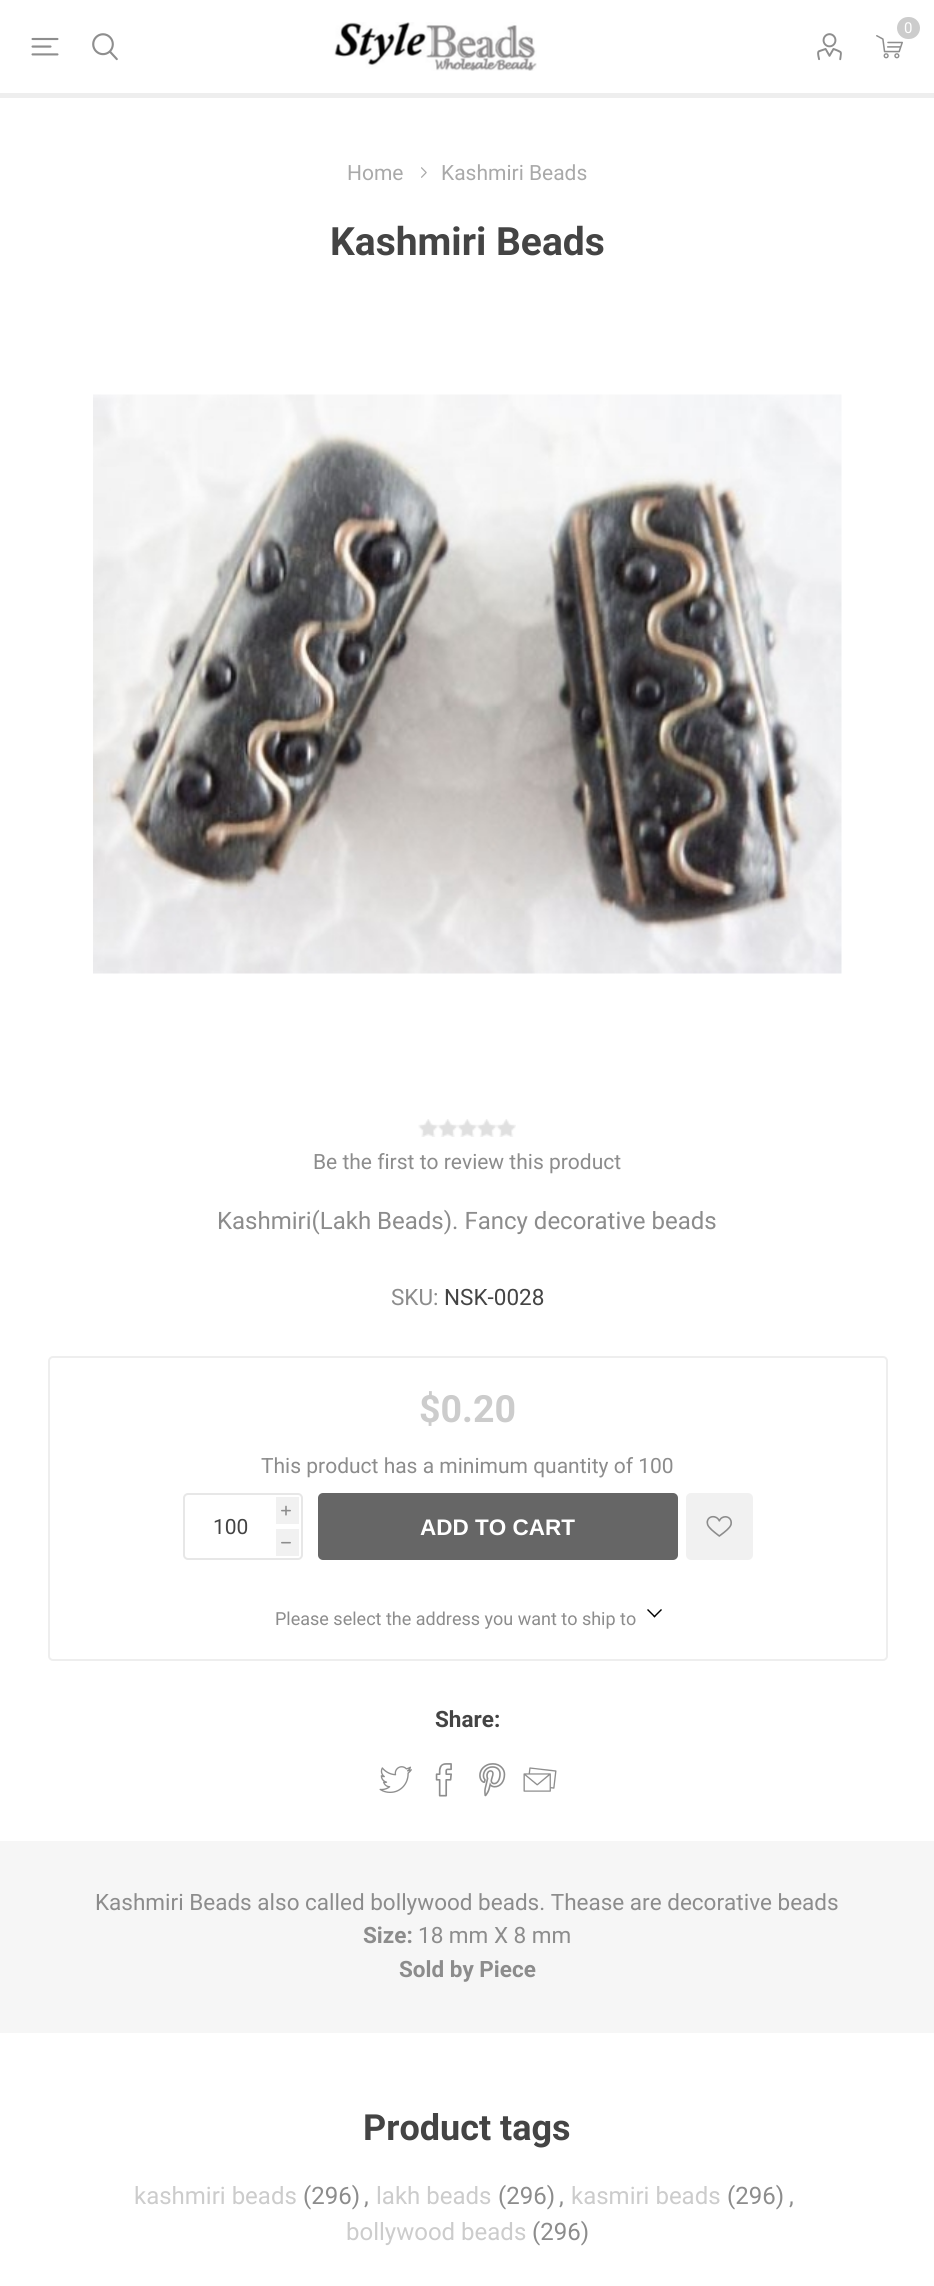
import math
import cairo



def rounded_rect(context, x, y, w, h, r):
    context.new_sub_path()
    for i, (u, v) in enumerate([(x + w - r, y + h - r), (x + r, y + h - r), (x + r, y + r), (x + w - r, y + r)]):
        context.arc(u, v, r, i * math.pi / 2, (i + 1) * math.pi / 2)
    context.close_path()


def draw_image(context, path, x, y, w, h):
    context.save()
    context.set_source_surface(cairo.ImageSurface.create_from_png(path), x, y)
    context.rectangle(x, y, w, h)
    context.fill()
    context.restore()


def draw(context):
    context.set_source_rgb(1, 1, 1)
    context.paint()
    context.set_source_rgb(238 / 255, 238 / 255, 238 / 255)
    context.rectangle(0, 93, 934, 5)
    context.fill()
    draw_image(context, "images/1.png", 334, 22, 203, 49)
    draw_image(context, "images/2.png", 876, 35, 27, 24)
    context.set_source_rgb(204 / 255, 204 / 255, 204 / 255)
    rounded_rect(context, 897, 17, 23, 22, 11)
    context.fill()
    draw_image(context, "images/3.png", 31, 37, 28, 19)
    draw_image(context, "images/4.png", 92, 33, 26, 28)
    draw_image(context, "images/5.png", 817, 33, 25, 28)
    draw_image(context, "images/6.png", 421, 167, 6, 11)
    draw_image(context, "images/7.png", 93, 394, 749, 580)
    draw_image(context, "images/8.png", 418, 1119, 98, 18)
    rounded_rect(context, 49, 1357, 838, 303, 4)
    context.set_source_rgb(238 / 255, 238 / 255, 238 / 255)
    context.stroke()
    rounded_rect(context, 184, 1494, 118, 65, 4)
    context.set_source_rgb(231 / 255, 231 / 255, 231 / 255)
    context.stroke()
    context.set_source_rgb(241 / 255, 241 / 255, 241 / 255)
    context.rectangle(276, 1497, 23, 27)
    context.fill()
    context.rectangle(276, 1529, 23, 27)
    context.fill()
    context.set_source_rgb(102 / 255, 102 / 255, 102 / 255)
    rounded_rect(context, 318, 1493, 360, 67, 5)
    context.fill()
    context.set_source_rgb(241 / 255, 241 / 255, 241 / 255)
    rounded_rect(context, 686, 1493, 67, 67, 5)
    context.fill()
    draw_image(context, "images/9.png", 706, 1515, 26, 22)
    context.set_source_rgb(0, 0, 0)
    context.new_path()
    context.move_to(661, 1609)
    context.line_to(662, 1610)
    context.line_to(654.5, 1617.5)
    context.line_to(653.5, 1616.5)
    context.close_path()
    context.fill()
    context.new_path()
    context.move_to(648, 1609)
    context.line_to(655.5, 1616.5)
    context.line_to(654.5, 1617.5)
    context.line_to(647, 1610)
    context.close_path()
    context.fill()
    draw_image(context, "images/10.png", 379, 1766, 33, 27)
    draw_image(context, "images/11.png", 435, 1763, 17, 34)
    draw_image(context, "images/12.png", 479, 1763, 27, 34)
    draw_image(context, "images/13.png", 523, 1767, 34, 25)
    context.set_source_rgb(246 / 255, 246 / 255, 246 / 255)
    context.rectangle(0, 1841, 934, 192)
    context.fill()
    context.select_font_face("Roboto")
    context.set_font_size(15)
    context.set_source_rgb(1, 1, 1)
    context.move_to(904, 33)
    context.show_text("0")
    context.set_font_size(21)
    context.set_source_rgb(169 / 255, 169 / 255, 169 / 255)
    context.move_to(347, 180)
    context.show_text("Home")
    context.move_to(441, 180)
    context.show_text("Kashmiri Beads")
    context.select_font_face("Roboto", cairo.FontSlant.NORMAL, cairo.FontWeight.BOLD)
    context.set_font_size(39)
    context.set_source_rgb(68 / 255, 68 / 255, 68 / 255)
    context.move_to(330, 255)
    context.show_text("Kashmiri Beads")
    context.select_font_face("Roboto")
    context.set_font_size(21)
    context.set_source_rgb(140 / 255, 140 / 255, 140 / 255)
    context.move_to(313, 1169)
    context.show_text("Be the first to review this product")
    context.set_font_size(24)
    context.move_to(217, 1229)
    context.show_text("Kashmiri(Lakh Beads). Fancy decorative beads")
    context.set_font_size(22.5)
    context.move_to(391, 1305)
    context.show_text("SKU:")
    context.set_source_rgb(68 / 255, 68 / 255, 68 / 255)
    context.move_to(444, 1305)
    context.show_text("NSK-0028")
    context.select_font_face("Roboto", cairo.FontSlant.NORMAL, cairo.FontWeight.BOLD)
    context.set_font_size(37.5)
    context.set_source_rgb(204 / 255, 204 / 255, 204 / 255)
    context.move_to(419, 1422)
    context.show_text("$0.20")
    context.select_font_face("Roboto")
    context.set_font_size(21)
    context.set_source_rgb(140 / 255, 140 / 255, 140 / 255)
    context.move_to(261, 1473)
    context.show_text("This product has a minimum quantity of 100")
    context.select_font_face("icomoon")
    context.set_font_size(10)
    context.move_to(281, 1515)
    context.show_text("i")
    context.select_font_face("Roboto")
    context.set_font_size(21)
    context.set_source_rgb(68 / 255, 68 / 255, 68 / 255)
    context.move_to(213, 1534)
    context.show_text("100")
    context.select_font_face("icomoon")
    context.set_font_size(10)
    context.set_source_rgb(140 / 255, 140 / 255, 140 / 255)
    context.move_to(281, 1547)
    context.show_text("h")
    context.select_font_face("Liberation Sans", cairo.FontSlant.NORMAL, cairo.FontWeight.BOLD)
    context.set_font_size(22.5)
    context.set_source_rgb(1, 1, 1)
    context.move_to(420, 1535)
    context.show_text("ADD TO CART")
    context.select_font_face("Roboto")
    context.set_font_size(18)
    context.set_source_rgb(140 / 255, 140 / 255, 140 / 255)
    context.move_to(275, 1625)
    context.show_text("Please select the address you want to ship to")
    context.select_font_face("Roboto", cairo.FontSlant.NORMAL, cairo.FontWeight.BOLD)
    context.set_font_size(22.5)
    context.set_source_rgb(68 / 255, 68 / 255, 68 / 255)
    context.move_to(435, 1727)
    context.show_text("Share:")
    context.select_font_face("Roboto")
    context.set_source_rgb(140 / 255, 140 / 255, 140 / 255)
    context.move_to(95, 1910)
    context.show_text("Kashmiri Beads also called bollywood beads. Thease are decorative beads")
    context.select_font_face("Roboto", cairo.FontSlant.NORMAL, cairo.FontWeight.BOLD)
    context.move_to(363, 1943)
    context.show_text("Size:")
    context.select_font_face("Roboto")
    context.move_to(418, 1943)
    context.show_text("18 mm X 8 mm")
    context.select_font_face("Roboto", cairo.FontSlant.NORMAL, cairo.FontWeight.BOLD)
    context.move_to(399, 1977)
    context.show_text("Sold by Piece")
    context.set_font_size(36)
    context.set_source_rgb(68 / 255, 68 / 255, 68 / 255)
    context.move_to(363, 2140)
    context.show_text("Product tags")
    context.select_font_face("Roboto")
    context.set_font_size(24)
    context.set_source_rgb(204 / 255, 204 / 255, 204 / 255)
    context.move_to(134, 2204)
    context.show_text("kashmiri beads")
    context.set_source_rgb(140 / 255, 140 / 255, 140 / 255)
    context.move_to(303, 2204)
    context.show_text("(296)")
    context.move_to(364, 2204)
    context.show_text(",")
    context.set_source_rgb(204 / 255, 204 / 255, 204 / 255)
    context.move_to(376, 2204)
    context.show_text("lakh beads")
    context.set_source_rgb(140 / 255, 140 / 255, 140 / 255)
    context.move_to(498, 2204)
    context.show_text("(296)")
    context.move_to(559, 2204)
    context.show_text(",")
    context.set_source_rgb(204 / 255, 204 / 255, 204 / 255)
    context.move_to(571, 2204)
    context.show_text("kasmiri beads")
    context.set_source_rgb(140 / 255, 140 / 255, 140 / 255)
    context.move_to(727, 2204)
    context.show_text("(296)")
    context.move_to(789, 2204)
    context.show_text(",")
    context.set_source_rgb(204 / 255, 204 / 255, 204 / 255)
    context.move_to(346, 2240)
    context.show_text("bollywood beads")
    context.set_source_rgb(140 / 255, 140 / 255, 140 / 255)
    context.move_to(532, 2240)
    context.show_text("(296)")


surface = cairo.ImageSurface(cairo.Format.RGB24, 934, 2286)
context = cairo.Context(surface)
options = cairo.FontOptions()
options.set_hint_metrics(cairo.HintMetrics.OFF)
options.set_hint_style(cairo.HintStyle.NONE)
context.set_font_options(options)
context.set_miter_limit(4)
draw(context)
surface.write_to_png("out.png")
